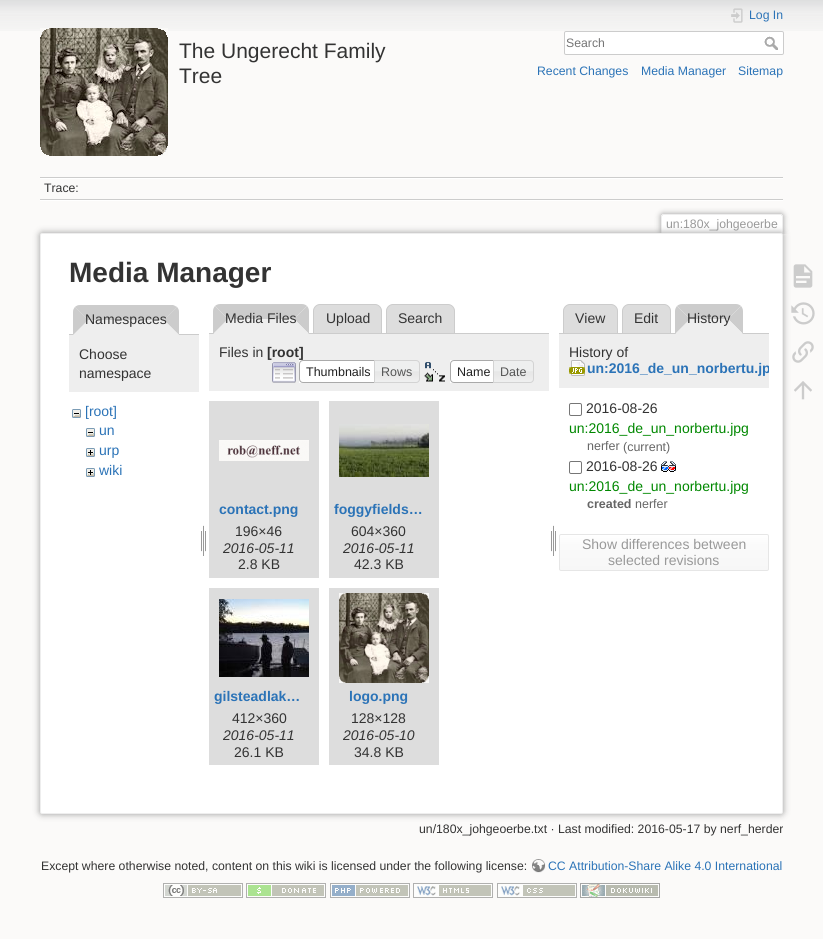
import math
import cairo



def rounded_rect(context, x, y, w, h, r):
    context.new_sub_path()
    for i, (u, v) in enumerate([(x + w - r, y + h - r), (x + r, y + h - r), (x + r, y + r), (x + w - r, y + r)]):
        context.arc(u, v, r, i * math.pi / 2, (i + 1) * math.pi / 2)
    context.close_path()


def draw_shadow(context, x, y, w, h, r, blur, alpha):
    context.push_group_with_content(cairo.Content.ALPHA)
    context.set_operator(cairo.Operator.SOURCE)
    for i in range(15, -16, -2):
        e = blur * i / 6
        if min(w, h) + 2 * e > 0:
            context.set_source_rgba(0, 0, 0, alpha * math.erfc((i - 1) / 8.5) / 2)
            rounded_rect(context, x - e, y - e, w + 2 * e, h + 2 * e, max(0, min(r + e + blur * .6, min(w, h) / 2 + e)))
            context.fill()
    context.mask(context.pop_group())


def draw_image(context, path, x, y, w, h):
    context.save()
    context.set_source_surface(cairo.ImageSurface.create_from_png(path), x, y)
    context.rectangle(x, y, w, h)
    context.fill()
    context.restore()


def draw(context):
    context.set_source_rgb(251 / 255, 250 / 255, 249 / 255)
    context.paint()
    draw_image(context, "images/1.png", 0, 0, 823, 31)
    draw_image(context, "images/2.png", 40, 28, 128, 128)
    draw_image(context, "images/3.png", 731, 8, 12, 15)
    context.set_source_rgb(1, 1, 1)
    rounded_rect(context, 564.5, 31.5, 219, 23, 1.5)
    context.fill_preserve()
    context.set_source_rgb(204 / 255, 204 / 255, 204 / 255)
    context.set_line_width(1)
    context.stroke()
    draw_image(context, "images/4.png", 764, 36, 14, 14)
    context.rectangle(40, 177, 743, 1)
    context.fill()
    context.set_source_rgb(1, 1, 1)
    context.rectangle(40, 200, 743, 1)
    context.fill()
    context.rectangle(40, 178, 743, 1)
    context.fill()
    context.set_source_rgb(204 / 255, 204 / 255, 204 / 255)
    context.rectangle(40, 199, 743, 1)
    context.fill()
    context.save()
    context.rectangle(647, 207, 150, 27)
    context.clip()
    context.set_source_rgb(153 / 255, 153 / 255, 153 / 255)
    draw_shadow(context, 661, 214, 122, 20, 2, 3, 1)
    context.restore()
    context.set_source_rgb(1, 1, 1)
    context.new_path()
    context.move_to(663, 215)
    context.line_to(781, 215)
    context.curve_to(781.5, 215, 782, 215.5, 782, 216)
    context.line_to(782, 234)
    context.line_to(662, 234)
    context.line_to(662, 216)
    context.curve_to(662, 215.5, 662.5, 215, 663, 215)
    context.close_path()
    context.fill()
    context.set_source_rgb(238 / 255, 238 / 255, 238 / 255)
    context.rectangle(662, 214, 120, 1)
    context.fill()
    context.rectangle(782, 215, 1, 19)
    context.fill()
    context.rectangle(661, 215, 1, 19)
    context.fill()
    context.set_source_rgb(153 / 255, 153 / 255, 153 / 255)
    draw_shadow(context, 40, 233, 743, 581, 2, 3.5, 1)
    context.set_source_rgb(1, 1, 1)
    rounded_rect(context, 40.5, 233.5, 742, 580, 1.5)
    context.fill_preserve()
    context.set_source_rgb(238 / 255, 238 / 255, 238 / 255)
    context.stroke()
    context.set_source_rgb(204 / 255, 204 / 255, 204 / 255)
    context.rectangle(69, 334, 130, 1)
    context.fill()
    context.set_source_rgb(238 / 255, 238 / 255, 238 / 255)
    context.new_path()
    context.move_to(80, 305)
    context.line_to(172, 305)
    context.curve_to(176, 305, 179, 308, 179, 312)
    context.line_to(179, 335)
    context.line_to(73, 335)
    context.line_to(73, 312)
    context.curve_to(73, 308, 76, 305, 80, 305)
    context.close_path()
    context.fill()
    context.set_source_rgb(204 / 255, 204 / 255, 204 / 255)
    context.new_path()
    context.move_to(80, 305)
    context.line_to(173, 305)
    context.line_to(177, 307)
    context.line_to(164, 320)
    context.line_to(88, 320)
    context.line_to(75, 307)
    context.curve_to(76, 306, 78, 305, 80, 305)
    context.close_path()
    context.fill()
    context.new_path()
    context.move_to(177, 307)
    context.line_to(164, 320)
    context.line_to(179, 335)
    context.line_to(179, 312)
    context.curve_to(179, 310, 178, 308, 177, 307)
    context.close_path()
    context.fill()
    context.set_source_rgb(238 / 255, 238 / 255, 238 / 255)
    context.new_path()
    context.move_to(179, 335)
    context.line_to(164, 320)
    context.line_to(88, 320)
    context.line_to(73, 335)
    context.close_path()
    context.fill()
    context.set_source_rgb(204 / 255, 204 / 255, 204 / 255)
    context.new_path()
    context.move_to(73, 335)
    context.line_to(73, 312)
    context.curve_to(73, 310, 74, 308, 75, 307)
    context.line_to(88, 320)
    context.close_path()
    context.fill()
    context.set_source_rgb(238 / 255, 238 / 255, 238 / 255)
    context.rectangle(69, 335, 130, 57)
    context.fill()
    draw_image(context, "images/5.png", 72, 409, 9, 9)
    draw_image(context, "images/5.png", 86, 428, 9, 9)
    draw_image(context, "images/6.png", 86, 448, 9, 9)
    draw_image(context, "images/6.png", 86, 468, 9, 9)
    draw_image(context, "images/7.png", 201, 525, 5, 31)
    context.set_source_rgb(204 / 255, 204 / 255, 204 / 255)
    context.new_path()
    context.move_to(220, 304)
    context.line_to(302, 304)
    context.curve_to(304, 304, 306, 305, 307, 306)
    context.line_to(294, 319)
    context.line_to(228, 319)
    context.line_to(215, 306)
    context.curve_to(216, 305, 218, 304, 220, 304)
    context.close_path()
    context.fill()
    context.set_source_rgb(221 / 255, 221 / 255, 221 / 255)
    context.new_path()
    context.move_to(320, 304.5)
    context.line_to(375, 304.5)
    context.curve_to(378.5, 304.5, 381.5, 307.5, 381.5, 311)
    context.line_to(381.5, 333.5)
    context.line_to(313.5, 333.5)
    context.line_to(313.5, 311)
    context.curve_to(313.5, 307.5, 316.5, 304.5, 320, 304.5)
    context.close_path()
    context.fill_preserve()
    context.set_source_rgb(204 / 255, 204 / 255, 204 / 255)
    context.stroke()
    context.set_source_rgb(221 / 255, 221 / 255, 221 / 255)
    context.new_path()
    context.move_to(393, 304.5)
    context.line_to(448, 304.5)
    context.curve_to(451.5, 304.5, 454.5, 307.5, 454.5, 311)
    context.line_to(454.5, 333.5)
    context.line_to(386.5, 333.5)
    context.line_to(386.5, 311)
    context.curve_to(386.5, 307.5, 389.5, 304.5, 393, 304.5)
    context.close_path()
    context.fill_preserve()
    context.set_source_rgb(204 / 255, 204 / 255, 204 / 255)
    context.stroke()
    context.rectangle(209, 333, 340, 1)
    context.fill()
    context.new_path()
    context.move_to(307, 306)
    context.line_to(294, 319)
    context.line_to(309, 334)
    context.line_to(309, 311)
    context.curve_to(309, 309, 308, 307, 307, 306)
    context.close_path()
    context.fill()
    context.set_source_rgb(238 / 255, 238 / 255, 238 / 255)
    context.new_path()
    context.move_to(309, 334)
    context.line_to(294, 319)
    context.line_to(228, 319)
    context.line_to(213, 334)
    context.close_path()
    context.fill()
    context.set_source_rgb(204 / 255, 204 / 255, 204 / 255)
    context.new_path()
    context.move_to(213, 334)
    context.line_to(213, 311)
    context.curve_to(213, 309, 214, 307, 215, 306)
    context.line_to(228, 319)
    context.close_path()
    context.fill()
    context.set_source_rgb(238 / 255, 238 / 255, 238 / 255)
    context.rectangle(209, 334, 340, 57)
    context.fill()
    draw_image(context, "images/8.png", 272, 362, 24, 21)
    context.set_source_rgb(1, 1, 1)
    context.rectangle(299, 360, 75, 23)
    context.fill()
    context.new_path()
    context.move_to(303, 360.5)
    context.line_to(378.5, 360.5)
    context.line_to(378.5, 382.5)
    context.line_to(303, 382.5)
    context.curve_to(301, 382.5, 299.5, 381, 299.5, 379)
    context.line_to(299.5, 364)
    context.curve_to(299.5, 362, 301, 360.5, 303, 360.5)
    context.close_path()
    context.set_source_rgb(170 / 255, 170 / 255, 170 / 255)
    context.stroke()
    draw_image(context, "images/9.png", 375, 360, 45, 23)
    context.new_path()
    context.move_to(374.5, 360.5)
    context.line_to(416, 360.5)
    context.curve_to(418, 360.5, 419.5, 362, 419.5, 364)
    context.line_to(419.5, 379)
    context.curve_to(419.5, 381, 418, 382.5, 416, 382.5)
    context.line_to(374.5, 382.5)
    context.close_path()
    context.set_source_rgb(211 / 255, 211 / 255, 211 / 255)
    context.stroke()
    draw_image(context, "images/10.png", 424, 362, 21, 20)
    context.set_source_rgb(1, 1, 1)
    context.rectangle(450, 360, 43, 23)
    context.fill()
    context.new_path()
    context.move_to(454, 360.5)
    context.line_to(497.5, 360.5)
    context.line_to(497.5, 382.5)
    context.line_to(454, 382.5)
    context.curve_to(452, 382.5, 450.5, 381, 450.5, 379)
    context.line_to(450.5, 364)
    context.curve_to(450.5, 362, 452, 360.5, 454, 360.5)
    context.close_path()
    context.set_source_rgb(170 / 255, 170 / 255, 170 / 255)
    context.stroke()
    draw_image(context, "images/11.png", 494, 360, 40, 23)
    context.new_path()
    context.move_to(493.5, 360.5)
    context.line_to(530, 360.5)
    context.curve_to(532, 360.5, 533.5, 362, 533.5, 364)
    context.line_to(533.5, 379)
    context.curve_to(533.5, 381, 532, 382.5, 530, 382.5)
    context.line_to(493.5, 382.5)
    context.close_path()
    context.set_source_rgb(211 / 255, 211 / 255, 211 / 255)
    context.stroke()
    context.set_source_rgb(221 / 255, 221 / 255, 221 / 255)
    context.rectangle(209, 401, 110, 177)
    context.fill()
    draw_image(context, "images/12.png", 219, 440, 90, 21)
    context.rectangle(329, 401, 110, 177)
    context.fill()
    draw_image(context, "images/13.png", 339, 424, 90, 53)
    context.rectangle(209, 588, 110, 177)
    context.fill()
    draw_image(context, "images/14.png", 219, 599, 90, 78)
    context.rectangle(329, 588, 110, 177)
    context.fill()
    draw_image(context, "images/15.png", 339, 593, 90, 90)
    draw_image(context, "images/7.png", 551, 525, 5, 31)
    context.new_path()
    context.move_to(570, 304.5)
    context.line_to(611, 304.5)
    context.curve_to(614.5, 304.5, 617.5, 307.5, 617.5, 311)
    context.line_to(617.5, 333.5)
    context.line_to(563.5, 333.5)
    context.line_to(563.5, 311)
    context.curve_to(563.5, 307.5, 566.5, 304.5, 570, 304.5)
    context.close_path()
    context.fill_preserve()
    context.set_source_rgb(204 / 255, 204 / 255, 204 / 255)
    context.stroke()
    context.set_source_rgb(221 / 255, 221 / 255, 221 / 255)
    context.new_path()
    context.move_to(629, 304.5)
    context.line_to(664, 304.5)
    context.curve_to(667.5, 304.5, 670.5, 307.5, 670.5, 311)
    context.line_to(670.5, 333.5)
    context.line_to(622.5, 333.5)
    context.line_to(622.5, 311)
    context.curve_to(622.5, 307.5, 625.5, 304.5, 629, 304.5)
    context.close_path()
    context.fill_preserve()
    context.set_source_rgb(204 / 255, 204 / 255, 204 / 255)
    context.stroke()
    context.new_path()
    context.move_to(682, 304)
    context.line_to(736, 304)
    context.curve_to(738, 304, 740, 305, 741, 306)
    context.line_to(728, 319)
    context.line_to(690, 319)
    context.line_to(677, 306)
    context.curve_to(678, 305, 680, 304, 682, 304)
    context.close_path()
    context.fill()
    context.rectangle(559, 333, 210, 1)
    context.fill()
    context.new_path()
    context.move_to(741, 306)
    context.line_to(728, 319)
    context.line_to(743, 334)
    context.line_to(743, 311)
    context.curve_to(743, 309, 742, 307, 741, 306)
    context.close_path()
    context.fill()
    context.set_source_rgb(238 / 255, 238 / 255, 238 / 255)
    context.new_path()
    context.move_to(743, 334)
    context.line_to(728, 319)
    context.line_to(690, 319)
    context.line_to(675, 334)
    context.close_path()
    context.fill()
    context.set_source_rgb(204 / 255, 204 / 255, 204 / 255)
    context.new_path()
    context.move_to(675, 334)
    context.line_to(675, 311)
    context.curve_to(675, 309, 676, 307, 677, 306)
    context.line_to(690, 319)
    context.close_path()
    context.fill()
    context.set_source_rgb(238 / 255, 238 / 255, 238 / 255)
    context.rectangle(559, 334, 210, 54)
    context.fill()
    draw_image(context, "images/16.png", 569, 360, 16, 16)
    rounded_rect(context, 569.5, 403.5, 12, 12, 1.5)
    context.set_source_rgb(118 / 255, 118 / 255, 118 / 255)
    context.stroke()
    rounded_rect(context, 569.5, 461.5, 12, 12, 1.5)
    context.stroke()
    draw_image(context, "images/17.png", 661, 461, 15, 11)
    context.save()
    rounded_rect(context, 559, 534, 210, 37, 2)
    context.clip()
    gradient = cairo.LinearGradient(664, 535, 664, 570)
    gradient.add_color_stop_rgba(0, 1, 1, 1, 1)
    gradient.add_color_stop_rgba(0.3, 250 / 255, 250 / 255, 250 / 255, 1)
    gradient.add_color_stop_rgba(0.99, 247 / 255, 247 / 255, 247 / 255, 1)
    gradient.add_color_stop_rgba(0.99, 230 / 255, 230 / 255, 230 / 255, 1)
    context.set_source(gradient)
    context.rectangle(559, 535, 210, 35)
    context.fill()
    context.restore()
    rounded_rect(context, 559.5, 534.5, 209, 36, 1.5)
    context.set_source_rgb(230 / 255, 230 / 255, 230 / 255)
    context.stroke()
    draw_image(context, "images/18.png", 793, 264, 20, 24)
    draw_image(context, "images/19.png", 791, 302, 24, 23)
    draw_image(context, "images/20.png", 792, 341, 22, 22)
    draw_image(context, "images/21.png", 794, 381, 18, 19)
    draw_image(context, "images/22.png", 532, 859, 14, 14)
    draw_image(context, "images/23.png", 163, 883, 80, 15)
    draw_image(context, "images/24.png", 246, 883, 80, 15)
    draw_image(context, "images/25.png", 330, 883, 80, 15)
    draw_image(context, "images/26.png", 413, 883, 80, 15)
    draw_image(context, "images/27.png", 497, 883, 80, 15)
    draw_image(context, "images/28.png", 580, 883, 80, 15)
    context.select_font_face("Liberation Sans")
    context.set_font_size(21)
    context.set_source_rgb(51 / 255, 51 / 255, 51 / 255)
    context.move_to(179, 58)
    context.show_text("The Ungerecht Family")
    context.move_to(179, 83)
    context.show_text("Tree")
    context.set_font_size(12.25)
    context.set_source_rgb(43 / 255, 115 / 255, 183 / 255)
    context.move_to(749, 19)
    context.show_text("Log In")
    context.set_source_rgb(117 / 255, 117 / 255, 117 / 255)
    context.move_to(566, 47)
    context.show_text("Search")
    context.set_source_rgb(43 / 255, 115 / 255, 183 / 255)
    context.move_to(537, 75)
    context.show_text("Recent Changes")
    context.move_to(641, 75)
    context.show_text("Media Manager")
    context.move_to(738, 75)
    context.show_text("Sitemap")
    context.set_source_rgb(51 / 255, 51 / 255, 51 / 255)
    context.move_to(44, 192)
    context.show_text("Trace:")
    context.set_source_rgb(153 / 255, 153 / 255, 153 / 255)
    context.move_to(666, 228)
    context.show_text("un:180x_johgeoerbe")
    context.select_font_face("Liberation Sans", cairo.FontSlant.NORMAL, cairo.FontWeight.BOLD)
    context.set_font_size(28)
    context.set_source_rgb(51 / 255, 51 / 255, 51 / 255)
    context.move_to(69, 282)
    context.show_text("Media Manager")
    context.select_font_face("Liberation Sans")
    context.set_font_size(14)
    context.move_to(85, 324)
    context.show_text("Namespaces")
    context.move_to(79, 359)
    context.show_text("Choose")
    context.move_to(79, 378)
    context.show_text("namespace")
    context.set_source_rgb(43 / 255, 115 / 255, 183 / 255)
    context.move_to(85, 416)
    context.show_text("[root]")
    context.move_to(99, 435)
    context.show_text("un")
    context.move_to(99, 455)
    context.show_text("urp")
    context.move_to(99, 475)
    context.show_text("wiki")
    context.set_source_rgb(51 / 255, 51 / 255, 51 / 255)
    context.move_to(225, 323)
    context.show_text("Media Files")
    context.move_to(326, 323)
    context.show_text("Upload")
    context.move_to(398, 323)
    context.show_text("Search")
    context.move_to(219, 357)
    context.show_text("Files in")
    context.select_font_face("Liberation Sans", cairo.FontSlant.NORMAL, cairo.FontWeight.BOLD)
    context.move_to(267, 357)
    context.show_text("[root]")
    context.select_font_face("Liberation Sans")
    context.set_font_size(12.5)
    context.set_source_rgb(33 / 255, 33 / 255, 33 / 255)
    context.move_to(306, 376)
    context.show_text("Thumbnails")
    context.set_source_rgb(85 / 255, 85 / 255, 85 / 255)
    context.move_to(381, 376)
    context.show_text("Rows")
    context.set_source_rgb(33 / 255, 33 / 255, 33 / 255)
    context.move_to(457, 376)
    context.show_text("Name")
    context.set_source_rgb(85 / 255, 85 / 255, 85 / 255)
    context.move_to(500, 376)
    context.show_text("Date")
    context.select_font_face("Liberation Sans", cairo.FontSlant.NORMAL, cairo.FontWeight.BOLD)
    context.set_font_size(14)
    context.set_source_rgb(43 / 255, 115 / 255, 183 / 255)
    context.move_to(219, 514)
    context.show_text("contact.png")
    context.select_font_face("Liberation Sans")
    context.set_source_rgb(51 / 255, 51 / 255, 51 / 255)
    context.move_to(235, 536)
    context.show_text("196×46")
    context.select_font_face("Liberation Sans", cairo.FontSlant.ITALIC)
    context.move_to(223, 553)
    context.show_text("2016-05-11")
    context.select_font_face("Liberation Sans")
    context.move_to(238, 569)
    context.show_text("2.8 KB")
    context.select_font_face("Liberation Sans", cairo.FontSlant.NORMAL, cairo.FontWeight.BOLD)
    context.set_source_rgb(43 / 255, 115 / 255, 183 / 255)
    context.move_to(334, 514)
    context.show_text("foggyfields…")
    context.select_font_face("Liberation Sans")
    context.set_source_rgb(51 / 255, 51 / 255, 51 / 255)
    context.move_to(351, 536)
    context.show_text("604×360")
    context.select_font_face("Liberation Sans", cairo.FontSlant.ITALIC)
    context.move_to(343, 553)
    context.show_text("2016-05-11")
    context.select_font_face("Liberation Sans")
    context.move_to(354, 569)
    context.show_text("42.3 KB")
    context.select_font_face("Liberation Sans", cairo.FontSlant.NORMAL, cairo.FontWeight.BOLD)
    context.set_source_rgb(43 / 255, 115 / 255, 183 / 255)
    context.move_to(214, 701)
    context.show_text("gilsteadlak…")
    context.select_font_face("Liberation Sans")
    context.set_source_rgb(51 / 255, 51 / 255, 51 / 255)
    context.move_to(232, 723)
    context.show_text("412×360")
    context.select_font_face("Liberation Sans", cairo.FontSlant.ITALIC)
    context.move_to(223, 740)
    context.show_text("2016-05-11")
    context.select_font_face("Liberation Sans")
    context.move_to(234, 757)
    context.show_text("26.1 KB")
    context.select_font_face("Liberation Sans", cairo.FontSlant.NORMAL, cairo.FontWeight.BOLD)
    context.set_source_rgb(43 / 255, 115 / 255, 183 / 255)
    context.move_to(349, 701)
    context.show_text("logo.png")
    context.select_font_face("Liberation Sans")
    context.set_source_rgb(51 / 255, 51 / 255, 51 / 255)
    context.move_to(351, 723)
    context.show_text("128×128")
    context.select_font_face("Liberation Sans", cairo.FontSlant.ITALIC)
    context.move_to(343, 740)
    context.show_text("2016-05-10")
    context.select_font_face("Liberation Sans")
    context.move_to(354, 757)
    context.show_text("34.8 KB")
    context.move_to(575, 323)
    context.show_text("View")
    context.move_to(634, 323)
    context.show_text("Edit")
    context.move_to(687, 323)
    context.show_text("History")
    context.move_to(569, 357)
    context.show_text("History of")
    context.save()
    context.rectangle(559, 334, 210, 54)
    context.clip()
    context.select_font_face("Liberation Sans", cairo.FontSlant.NORMAL, cairo.FontWeight.BOLD)
    context.set_source_rgb(43 / 255, 115 / 255, 183 / 255)
    context.move_to(587, 373)
    context.show_text("un:2016_de_un_norbertu.jp")
    context.restore()
    context.move_to(586, 413)
    context.show_text("2016-08-26")
    context.set_source_rgb(0, 136 / 255, 0)
    context.move_to(569, 433)
    context.show_text("un:2016_de_un_norbertu.jpg")
    context.set_font_size(12.5)
    context.set_source_rgb(102 / 255, 102 / 255, 102 / 255)
    context.move_to(587, 450)
    context.show_text("nerfer")
    context.move_to(623, 451)
    context.show_text("(current)")
    context.set_font_size(14)
    context.set_source_rgb(51 / 255, 51 / 255, 51 / 255)
    context.move_to(586, 471)
    context.show_text("2016-08-26")
    context.set_source_rgb(0, 136 / 255, 0)
    context.move_to(569, 491)
    context.show_text("un:2016_de_un_norbertu.jpg")
    context.select_font_face("Liberation Sans", cairo.FontSlant.NORMAL, cairo.FontWeight.BOLD)
    context.set_font_size(12.5)
    context.set_source_rgb(102 / 255, 102 / 255, 102 / 255)
    context.move_to(587, 508)
    context.show_text("created")
    context.select_font_face("Liberation Sans")
    context.move_to(635, 508)
    context.show_text("nerfer")
    context.set_font_size(14)
    context.set_source_rgb(153 / 255, 153 / 255, 153 / 255)
    context.move_to(582, 549)
    context.show_text("Show differences between")
    context.move_to(608, 565)
    context.show_text("selected revisions")
    context.set_font_size(12.25)
    context.set_source_rgb(51 / 255, 51 / 255, 51 / 255)
    context.move_to(419, 833)
    context.show_text("un/180x_johgeoerbe.txt · Last modified: 2016-05-17 by nerf_herder")
    context.move_to(41, 870)
    context.show_text("Except where otherwise noted, content on this wiki is licensed under the following license:")
    context.set_source_rgb(43 / 255, 115 / 255, 183 / 255)
    context.move_to(548, 870)
    context.show_text("CC Attribution-Share Alike 4.0 International")


surface = cairo.ImageSurface(cairo.Format.RGB24, 823, 939)
context = cairo.Context(surface)
options = cairo.FontOptions()
options.set_hint_metrics(cairo.HintMetrics.OFF)
options.set_hint_style(cairo.HintStyle.NONE)
context.set_font_options(options)
context.set_miter_limit(4)
draw(context)
surface.write_to_png("out.png")
